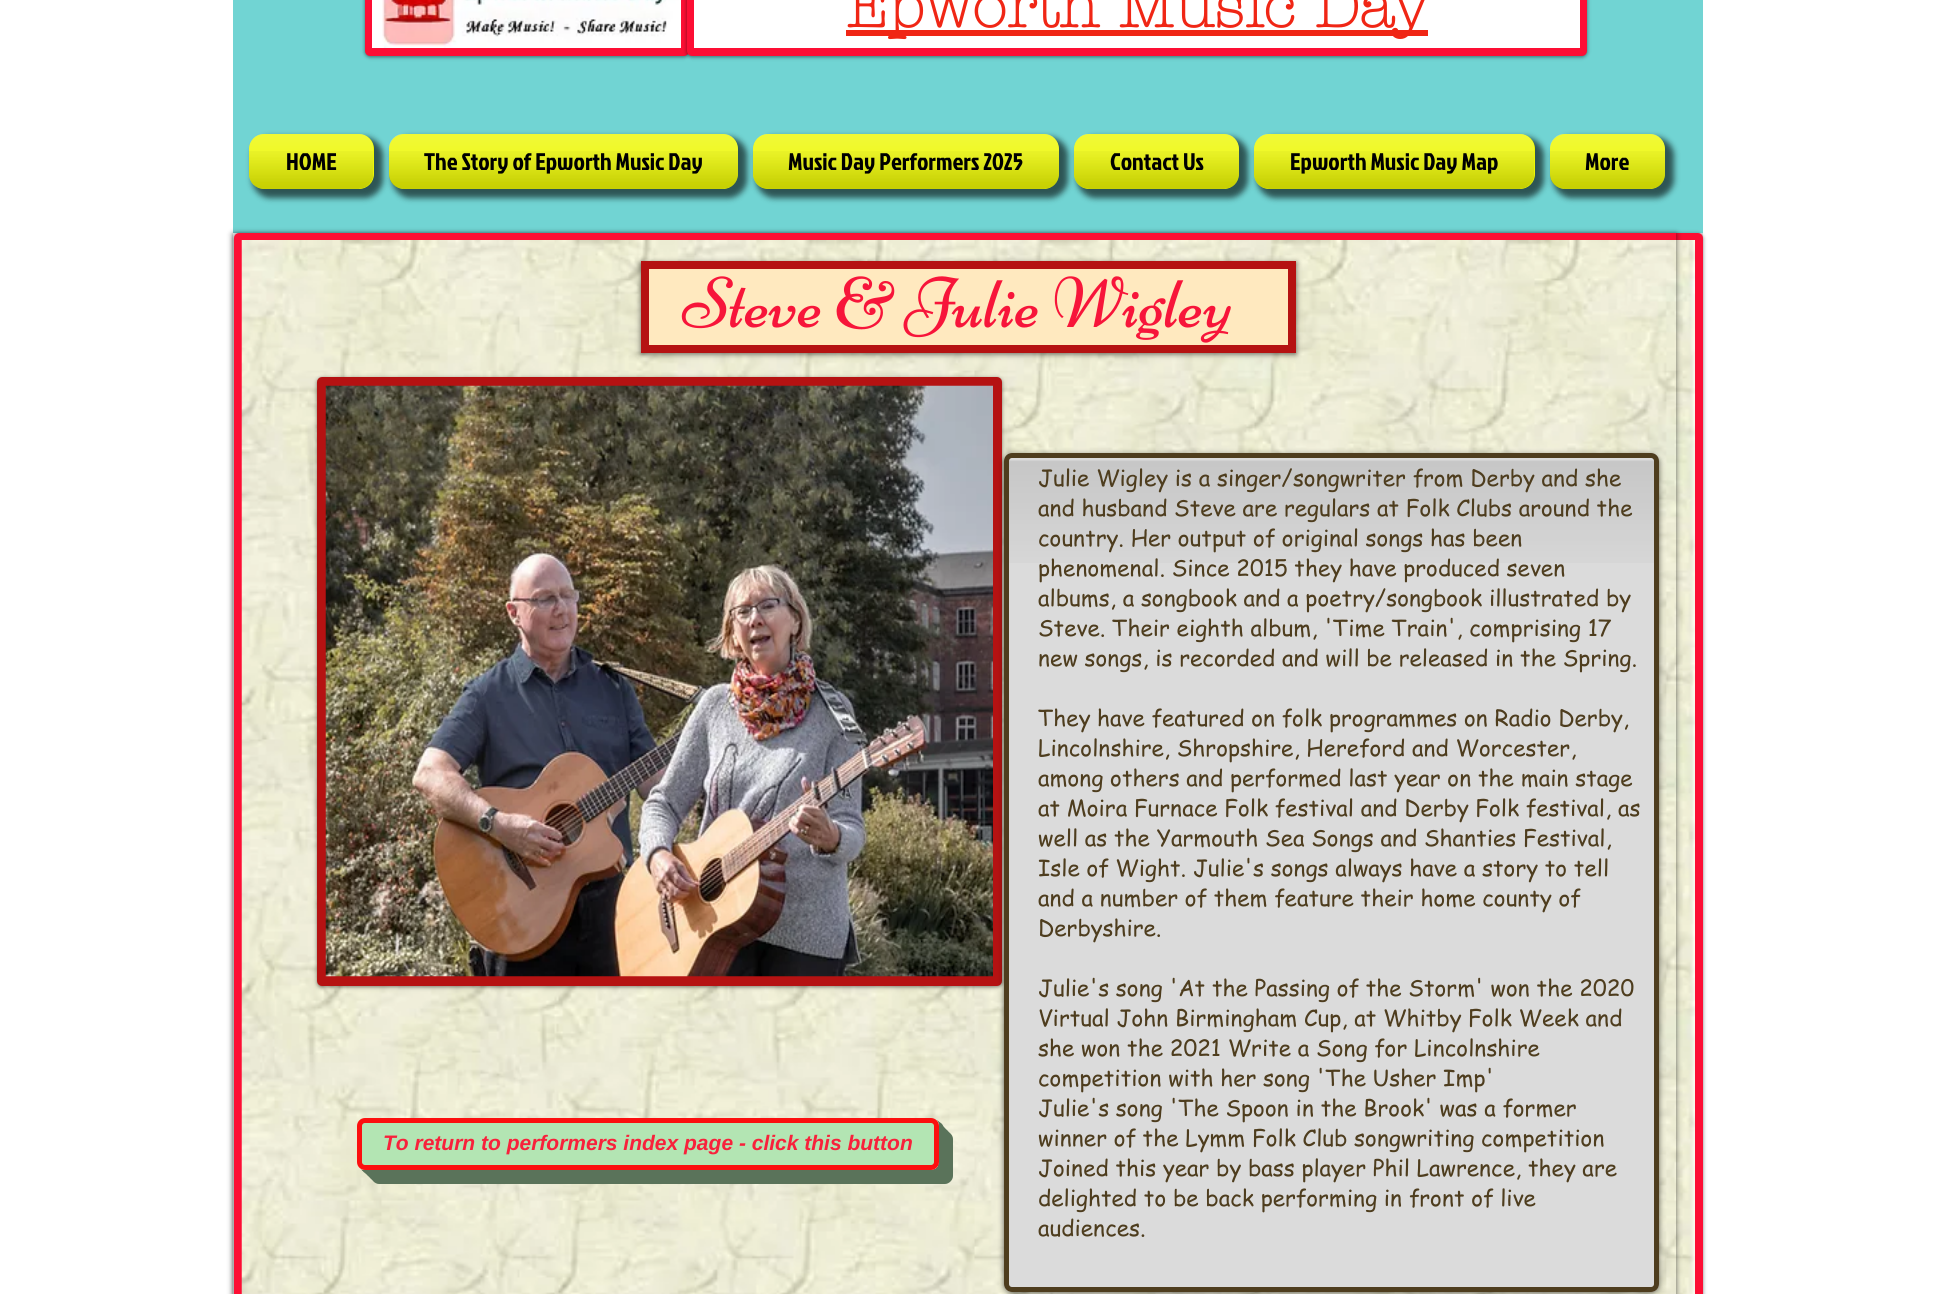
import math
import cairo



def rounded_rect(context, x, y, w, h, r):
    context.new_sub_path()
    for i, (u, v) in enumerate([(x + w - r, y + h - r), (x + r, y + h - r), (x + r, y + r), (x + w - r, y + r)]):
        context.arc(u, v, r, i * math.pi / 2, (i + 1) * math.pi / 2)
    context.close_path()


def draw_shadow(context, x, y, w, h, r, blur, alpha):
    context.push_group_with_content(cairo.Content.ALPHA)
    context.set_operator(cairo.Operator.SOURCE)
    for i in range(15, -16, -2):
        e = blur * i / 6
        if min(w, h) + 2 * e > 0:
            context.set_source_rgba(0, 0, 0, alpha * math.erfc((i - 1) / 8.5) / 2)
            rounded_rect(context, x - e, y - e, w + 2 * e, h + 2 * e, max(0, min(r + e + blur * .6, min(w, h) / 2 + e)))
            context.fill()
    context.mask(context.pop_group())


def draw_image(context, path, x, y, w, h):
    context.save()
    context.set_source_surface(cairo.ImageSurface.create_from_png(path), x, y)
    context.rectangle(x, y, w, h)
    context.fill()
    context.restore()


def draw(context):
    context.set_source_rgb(1, 1, 1)
    context.paint()
    context.set_source_rgb(113 / 255, 212 / 255, 211 / 255)
    context.rectangle(233, 0, 1470, 233)
    context.fill()
    context.set_source_rgb(0, 0, 0)
    draw_shadow(context, 365, -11, 324, 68, 5, 2, 0.5)
    rounded_rect(context, 369, -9, 316, 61, 1)
    context.set_source_rgb(253 / 255, 14 / 255, 52 / 255)
    context.set_line_width(8)
    context.stroke()
    draw_image(context, "images/1.png", 372, 0, 309, 48)
    context.set_source_rgb(0, 0, 0)
    draw_shadow(context, 687, -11, 900, 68, 5, 2, 0.5)
    rounded_rect(context, 691, -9, 892, 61, 1)
    context.set_source_rgb(253 / 255, 14 / 255, 52 / 255)
    context.stroke()
    context.set_source_rgb(1, 1, 1)
    context.rectangle(694, 0, 886, 48)
    context.fill()
    context.set_source_rgb(240 / 255, 38 / 255, 21 / 255)
    context.rectangle(846, 30, 582, 6)
    context.fill()
    context.set_source_rgb(0, 0, 0)
    draw_shadow(context, 252, 137, 131, 61, 18, 3, 0.6)
    context.set_source_rgb(237 / 255, 248 / 255, 5 / 255)
    rounded_rect(context, 249, 134, 125, 55, 15)
    context.fill()
    draw_image(context, "images/2.png", 249, 134, 124, 48)
    draw_image(context, "images/3.png", 249, 151, 124, 38)
    context.set_source_rgb(0, 0, 0)
    draw_shadow(context, 392, 137, 355, 61, 18, 3, 0.6)
    context.set_source_rgb(237 / 255, 248 / 255, 5 / 255)
    rounded_rect(context, 389, 134, 349, 55, 15)
    context.fill()
    draw_image(context, "images/4.png", 389, 134, 349, 48)
    draw_image(context, "images/5.png", 389, 151, 349, 38)
    context.set_source_rgb(0, 0, 0)
    draw_shadow(context, 756, 137, 312, 61, 18, 3, 0.6)
    context.set_source_rgb(237 / 255, 248 / 255, 5 / 255)
    rounded_rect(context, 753, 134, 306, 55, 15)
    context.fill()
    draw_image(context, "images/6.png", 753, 134, 306, 48)
    draw_image(context, "images/7.png", 753, 151, 306, 38)
    context.set_source_rgb(0, 0, 0)
    draw_shadow(context, 1077, 137, 171, 61, 18, 3, 0.6)
    context.set_source_rgb(237 / 255, 248 / 255, 5 / 255)
    rounded_rect(context, 1074, 134, 165, 55, 15)
    context.fill()
    draw_image(context, "images/8.png", 1074, 134, 165, 48)
    draw_image(context, "images/9.png", 1074, 151, 165, 38)
    context.set_source_rgb(0, 0, 0)
    draw_shadow(context, 1257, 137, 287, 61, 18, 3, 0.6)
    context.set_source_rgb(237 / 255, 248 / 255, 5 / 255)
    rounded_rect(context, 1254, 134, 281, 55, 15)
    context.fill()
    draw_image(context, "images/10.png", 1254, 134, 280, 48)
    draw_image(context, "images/11.png", 1254, 151, 280, 38)
    context.set_source_rgb(0, 0, 0)
    draw_shadow(context, 1553, 137, 121, 61, 18, 3, 0.6)
    context.set_source_rgb(237 / 255, 248 / 255, 5 / 255)
    rounded_rect(context, 1550, 134, 115, 55, 15)
    context.fill()
    draw_image(context, "images/12.png", 1550, 134, 115, 48)
    draw_image(context, "images/13.png", 1550, 151, 115, 38)
    context.set_source_rgb(219 / 255, 219 / 255, 219 / 255)
    context.rectangle(233, 233, 1470, 1061)
    context.fill()
    context.set_source_rgb(0, 0, 0)
    draw_shadow(context, 234, 234, 1469, 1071, 5, 2, 0.5)
    rounded_rect(context, 238, 237, 1461, 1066, 1)
    context.set_source_rgb(253 / 255, 14 / 255, 52 / 255)
    context.stroke()
    draw_image(context, "images/14.png", 241, 240, 1454, 1054)
    context.save()
    context.set_fill_rule(cairo.FillRule.EVEN_ODD)
    context.new_path()
    context.move_to(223, 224)
    context.line_to(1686, 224)
    context.line_to(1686, 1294)
    context.line_to(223, 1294)
    context.close_path()
    context.move_to(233, 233)
    context.line_to(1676, 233)
    context.line_to(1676, 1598)
    context.line_to(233, 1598)
    context.close_path()
    context.clip()
    context.set_source_rgb(0, 0, 0)
    draw_shadow(context, 233, 234, 1443, 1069, 0, 3, 0.6)
    context.restore()
    context.set_source_rgb(0, 0, 0)
    draw_shadow(context, 641, 263, 655, 91, 0, 3, 0.6)
    context.set_source_rgb(1, 233 / 255, 191 / 255)
    context.rectangle(645, 265, 647, 84)
    context.fill_preserve()
    context.set_source_rgb(181 / 255, 18 / 255, 18 / 255)
    context.stroke()
    draw_image(context, "images/15.png", 681, 276, 550, 67)
    context.set_source_rgb(0, 0, 0)
    draw_shadow(context, 317, 378, 685, 609, 5, 2, 0.5)
    context.set_source_rgb(181 / 255, 18 / 255, 18 / 255)
    rounded_rect(context, 321.5, 381.5, 676, 600, 0.5)
    context.fill_preserve()
    context.set_line_width(9)
    context.stroke()
    draw_image(context, "images/16.png", 325, 385, 668, 592)
    context.set_source_rgb(0, 0, 0)
    draw_shadow(context, 1004, 455, 655, 838, 8, 3, 0.6)
    context.set_source_rgb(219 / 255, 219 / 255, 219 / 255)
    rounded_rect(context, 1004, 453, 655, 839, 8)
    context.fill()
    draw_image(context, "images/17.png", 1004, 460, 655, 103)
    rounded_rect(context, 1006.5, 455.5, 650, 834, 5.5)
    context.set_source_rgb(78 / 255, 61 / 255, 30 / 255)
    context.set_line_width(5)
    context.stroke()
    context.set_source_rgb(90 / 255, 115 / 255, 90 / 255)
    context.new_path()
    context.move_to(371, 1170)
    context.line_to(371, 1176)
    context.curve_to(371, 1180, 375, 1184, 379, 1184)
    context.line_to(945, 1184)
    context.curve_to(949, 1184, 953, 1180, 953, 1176)
    context.line_to(953, 1139)
    context.curve_to(953, 1135, 949, 1131, 945, 1131)
    context.line_to(939, 1131)
    context.line_to(939, 1162)
    context.curve_to(939, 1167, 936, 1170, 932, 1170)
    context.close_path()
    context.fill()
    context.new_path()
    context.move_to(368, 1170)
    context.line_to(368, 1173)
    context.curve_to(368, 1177, 372, 1181, 376, 1181)
    context.line_to(942, 1181)
    context.curve_to(946, 1181, 950, 1177, 950, 1173)
    context.line_to(950, 1136)
    context.curve_to(950, 1132, 946, 1128, 942, 1128)
    context.line_to(939, 1128)
    context.line_to(939, 1162)
    context.curve_to(939, 1167, 936, 1170, 932, 1170)
    context.close_path()
    context.fill()
    context.new_path()
    context.move_to(365, 1170)
    context.curve_to(365, 1174, 369, 1178, 373, 1178)
    context.line_to(939, 1178)
    context.curve_to(943, 1178, 947, 1174, 947, 1170)
    context.line_to(947, 1133)
    context.curve_to(947, 1129, 943, 1125, 939, 1125)
    context.line_to(939, 1162)
    context.curve_to(939, 1167, 936, 1170, 932, 1170)
    context.close_path()
    context.fill()
    context.new_path()
    context.move_to(362, 1170)
    context.curve_to(364, 1173, 367, 1175, 370, 1175)
    context.line_to(936, 1175)
    context.curve_to(940, 1175, 944, 1171, 944, 1167)
    context.line_to(944, 1130)
    context.curve_to(944, 1126, 942, 1123, 939, 1122)
    context.line_to(939, 1150)
    context.curve_to(939, 1156, 942, 1170, 932, 1170)
    context.close_path()
    context.fill()
    context.new_path()
    context.move_to(361, 1169)
    context.curve_to(362, 1171, 364, 1172, 367, 1172)
    context.line_to(933, 1172)
    context.curve_to(937, 1172, 941, 1168, 941, 1164)
    context.line_to(941, 1127)
    context.curve_to(941, 1124, 940, 1122, 937, 1120)
    context.curve_to(938, 1122, 939, 1123, 939, 1125)
    context.line_to(939, 1162)
    context.curve_to(939, 1167, 936, 1170, 932, 1170)
    context.line_to(364, 1170)
    context.curve_to(363, 1170, 362, 1170, 361, 1169)
    context.close_path()
    context.fill()
    context.set_source_rgb(179 / 255, 229 / 255, 179 / 255)
    rounded_rect(context, 359.5, 1120.5, 577, 47, 5.5)
    context.fill_preserve()
    context.set_source_rgb(252 / 255, 15 / 255, 15 / 255)
    context.stroke()
    context.select_font_face("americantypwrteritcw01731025", cairo.FontSlant.NORMAL, cairo.FontWeight.BOLD)
    context.set_font_size(60)
    context.set_source_rgb(240 / 255, 38 / 255, 21 / 255)
    context.move_to(846, 27)
    context.show_text("Epworth Music Day")
    context.select_font_face("Jockey One")
    context.set_font_size(24)
    context.set_source_rgb(0, 0, 0)
    context.move_to(286, 170)
    context.show_text("HOME")
    context.move_to(424, 170)
    context.show_text("The Story of Epworth Music Day")
    context.move_to(788, 170)
    context.show_text("Music Day Performers 2025")
    context.move_to(1110, 170)
    context.show_text("Contact Us")
    context.move_to(1290, 170)
    context.show_text("Epworth Music Day Map")
    context.move_to(1585, 170)
    context.show_text("More")
    context.select_font_face("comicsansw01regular")
    context.set_font_size(22.5)
    context.set_source_rgb(78 / 255, 61 / 255, 30 / 255)
    context.move_to(1038, 486)
    context.show_text("Julie Wigley is a singer/songwriter from Derby and she")
    context.move_to(1038, 516)
    context.show_text("and husband Steve are regulars at Folk Clubs around the")
    context.move_to(1038, 546)
    context.show_text("country. Her output of original songs has been")
    context.move_to(1038, 576)
    context.show_text("phenomenal. Since 2015 they have produced seven")
    context.move_to(1038, 606)
    context.show_text("albums, a songbook and a poetry/songbook illustrated by")
    context.move_to(1038, 636)
    context.show_text("Steve. Their eighth album, 'Time Train', comprising 17")
    context.move_to(1038, 666)
    context.show_text("new songs, is recorded and will be released in the Spring.")
    context.move_to(1038, 726)
    context.show_text("They have featured on folk programmes on Radio Derby,")
    context.move_to(1038, 756)
    context.show_text("Lincolnshire, Shropshire, Hereford and Worcester,")
    context.move_to(1038, 786)
    context.show_text("among others and performed last year on the main stage")
    context.move_to(1038, 816)
    context.show_text("at Moira Furnace Folk festival and Derby Folk festival, as")
    context.move_to(1038, 846)
    context.show_text("well as the Yarmouth Sea Songs and Shanties Festival,")
    context.move_to(1038, 876)
    context.show_text("Isle of Wight. Julie's songs always have a story to tell")
    context.move_to(1038, 906)
    context.show_text("and a number of them feature their home county of")
    context.move_to(1038, 936)
    context.show_text("Derbyshire.")
    context.move_to(1038, 996)
    context.show_text("Julie's song 'At the Passing of the Storm' won the 2020")
    context.move_to(1038, 1026)
    context.show_text("Virtual John Birmingham Cup, at Whitby Folk Week and")
    context.move_to(1038, 1056)
    context.show_text("she won the 2021 Write a Song for Lincolnshire")
    context.move_to(1038, 1086)
    context.show_text("competition with her song 'The Usher Imp'")
    context.move_to(1038, 1116)
    context.show_text("Julie's song 'The Spoon in the Brook' was a former")
    context.move_to(1038, 1146)
    context.show_text("winner of the Lymm Folk Club songwriting competition")
    context.move_to(1038, 1176)
    context.show_text("Joined this year by bass player Phil Lawrence, they are")
    context.move_to(1038, 1206)
    context.show_text("delighted to be back performing in front of live")
    context.move_to(1038, 1236)
    context.show_text("audiences.")
    context.select_font_face("Liberation Sans", cairo.FontSlant.ITALIC, cairo.FontWeight.BOLD)
    context.set_font_size(21)
    context.set_source_rgb(248 / 255, 33 / 255, 59 / 255)
    context.move_to(383, 1150)
    context.show_text("To return to performers index page - click this button")


surface = cairo.ImageSurface(cairo.Format.RGB24, 1935, 1294)
context = cairo.Context(surface)
options = cairo.FontOptions()
options.set_hint_metrics(cairo.HintMetrics.OFF)
options.set_hint_style(cairo.HintStyle.NONE)
context.set_font_options(options)
context.set_miter_limit(4)
draw(context)
surface.write_to_png("out.png")
